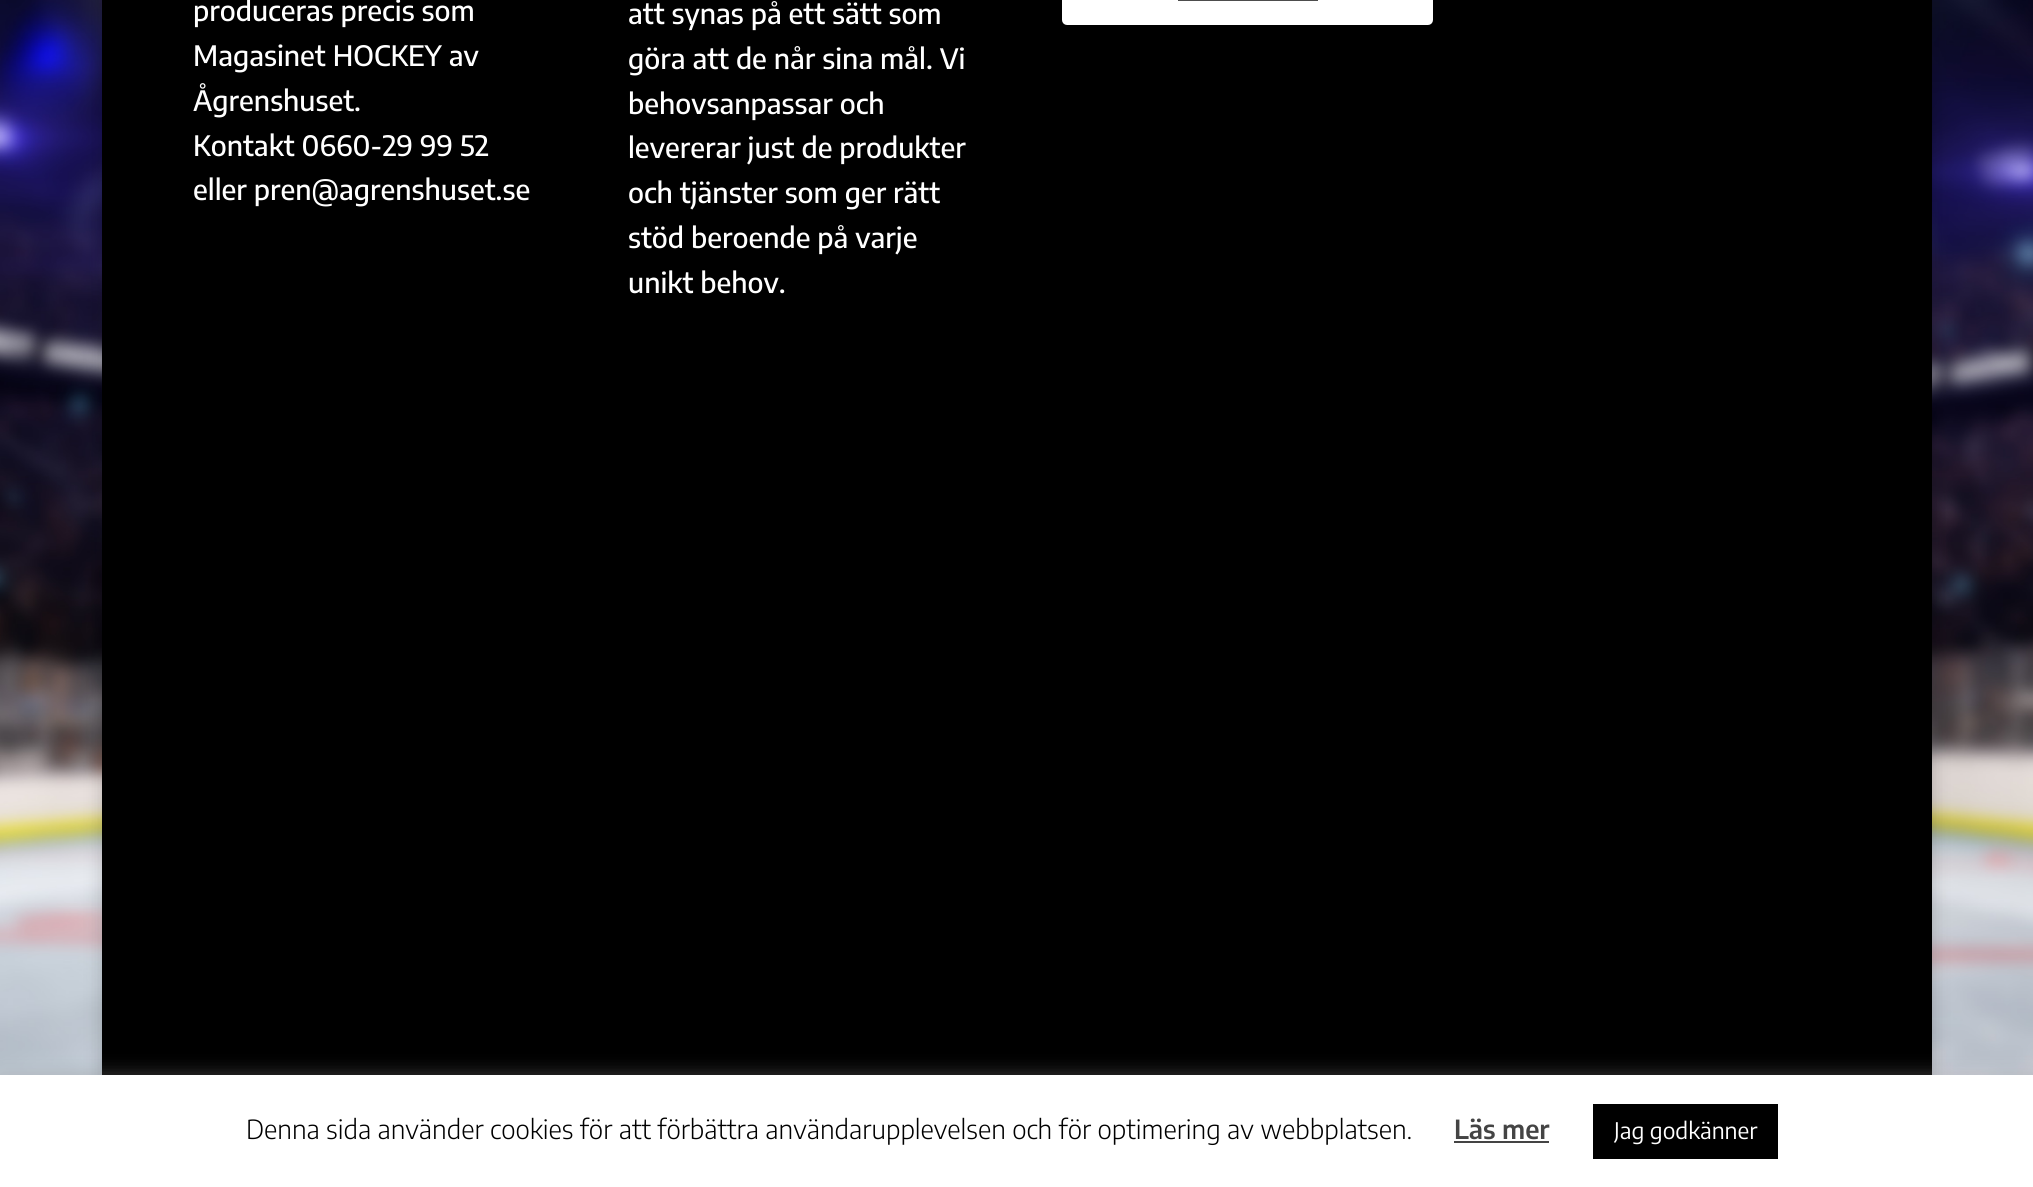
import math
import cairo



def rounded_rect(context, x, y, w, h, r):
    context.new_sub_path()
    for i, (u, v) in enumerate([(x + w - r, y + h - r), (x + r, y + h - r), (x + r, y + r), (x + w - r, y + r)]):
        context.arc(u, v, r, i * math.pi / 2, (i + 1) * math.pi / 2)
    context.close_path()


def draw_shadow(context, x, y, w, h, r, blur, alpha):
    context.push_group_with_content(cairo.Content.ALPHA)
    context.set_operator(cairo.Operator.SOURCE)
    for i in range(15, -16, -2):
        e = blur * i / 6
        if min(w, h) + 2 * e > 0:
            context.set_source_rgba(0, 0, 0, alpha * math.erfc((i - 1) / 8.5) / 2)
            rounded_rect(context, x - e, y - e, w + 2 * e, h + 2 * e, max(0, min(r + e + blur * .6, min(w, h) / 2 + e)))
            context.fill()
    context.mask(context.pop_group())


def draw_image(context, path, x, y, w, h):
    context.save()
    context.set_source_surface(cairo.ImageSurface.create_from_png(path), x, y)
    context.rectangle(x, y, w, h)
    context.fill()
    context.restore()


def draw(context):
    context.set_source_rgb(1, 1, 1)
    context.paint()
    draw_image(context, "images/1.png", 0, 0, 2033, 1075)
    context.set_source_rgb(0, 0, 0)
    draw_shadow(context, 102, -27, 1830, 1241, 0, 9, 0.2)
    context.set_source_rgb(0, 0, 0)
    context.rectangle(102, 0, 1830, 1075)
    context.fill()
    context.set_source_rgb(1, 1, 1)
    rounded_rect(context, 1064, -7, 367, 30, 3)
    context.fill_preserve()
    context.set_line_width(4)
    context.stroke()
    context.set_source_rgb(77 / 255, 77 / 255, 77 / 255)
    context.rectangle(1178, 0, 140, 1)
    context.fill()
    context.set_source_rgb(172 / 255, 171 / 255, 171 / 255)
    draw_shadow(context, 0, 1073, 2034, 114, 0, 9, 0.3)
    context.set_source_rgb(1, 1, 1)
    context.rectangle(0, 1075, 2033, 112)
    context.fill()
    context.set_source_rgb(68 / 255, 68 / 255, 68 / 255)
    context.rectangle(1454, 1141, 95, 2)
    context.fill()
    context.set_source_rgb(0, 0, 0)
    context.rectangle(1593, 1104, 185, 55)
    context.fill()
    context.select_font_face("Encode Sans Condensed Medium")
    context.set_font_size(28)
    context.set_source_rgb(1, 1, 1)
    context.move_to(193, 21)
    context.show_text("produceras precis som")
    context.move_to(193, 66)
    context.show_text("Magasinet HOCKEY av")
    context.move_to(193, 111)
    context.show_text("Ågrenshuset.")
    context.move_to(193, 156)
    context.show_text("Kontakt 0660-29 99 52")
    context.move_to(193, 200)
    context.show_text("eller pren@agrenshuset.se")
    context.move_to(628, 24)
    context.show_text("att synas på ett sätt som")
    context.move_to(628, 69)
    context.show_text("göra att de når sina mål. Vi")
    context.move_to(628, 114)
    context.show_text("behovsanpassar och")
    context.move_to(628, 158)
    context.show_text("levererar just de produkter")
    context.move_to(628, 203)
    context.show_text("och tjänster som ger rätt")
    context.move_to(628, 248)
    context.show_text("stöd beroende på varje")
    context.move_to(628, 293)
    context.show_text("unikt behov.")
    context.select_font_face("Encode Sans Condensed Light")
    context.set_font_size(26.25)
    context.set_source_rgb(0, 0, 0)
    context.move_to(246, 1139)
    context.show_text("Denna sida använder cookies för att förbättra användarupplevelsen och för optimering av webbplatsen.")
    context.select_font_face("Encode Sans Condensed SemiBold")
    context.set_source_rgb(68 / 255, 68 / 255, 68 / 255)
    context.move_to(1454, 1139)
    context.show_text("Läs mer")
    context.select_font_face("Encode Sans Condensed")
    context.set_font_size(22.75)
    context.set_source_rgb(1, 1, 1)
    context.move_to(1614, 1139)
    context.show_text("Jag godkänner")


surface = cairo.ImageSurface(cairo.Format.RGB24, 2033, 1187)
context = cairo.Context(surface)
options = cairo.FontOptions()
options.set_hint_metrics(cairo.HintMetrics.OFF)
options.set_hint_style(cairo.HintStyle.NONE)
context.set_font_options(options)
context.set_miter_limit(4)
draw(context)
surface.write_to_png("out.png")
